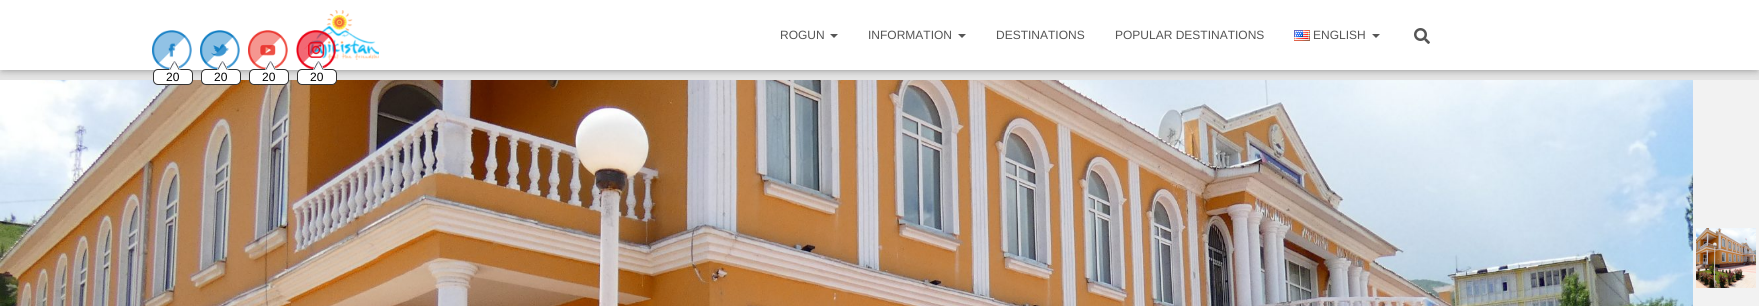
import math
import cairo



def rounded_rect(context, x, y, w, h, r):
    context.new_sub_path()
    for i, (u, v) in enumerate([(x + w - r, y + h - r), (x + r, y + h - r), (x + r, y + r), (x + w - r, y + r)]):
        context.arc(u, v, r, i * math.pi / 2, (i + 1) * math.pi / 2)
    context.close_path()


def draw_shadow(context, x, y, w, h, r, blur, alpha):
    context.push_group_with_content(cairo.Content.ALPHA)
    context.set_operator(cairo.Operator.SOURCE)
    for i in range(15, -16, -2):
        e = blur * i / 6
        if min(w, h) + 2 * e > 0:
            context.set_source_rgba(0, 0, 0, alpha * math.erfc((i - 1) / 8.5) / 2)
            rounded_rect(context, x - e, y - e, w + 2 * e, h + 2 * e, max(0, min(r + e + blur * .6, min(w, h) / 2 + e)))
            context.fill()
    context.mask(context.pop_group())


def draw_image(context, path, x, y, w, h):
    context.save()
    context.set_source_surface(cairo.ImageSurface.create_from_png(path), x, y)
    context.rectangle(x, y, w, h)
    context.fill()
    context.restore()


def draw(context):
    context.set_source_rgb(229 / 255, 229 / 255, 229 / 255)
    context.paint()
    draw_image(context, "images/4.png", 0, 80, 1693, 226)
    context.set_source_rgb(242 / 255, 242 / 255, 242 / 255)
    context.rectangle(1693, 80, 66, 226)
    context.fill()
    context.set_source_rgb(0, 0, 0)
    draw_shadow(context, 2, 6, 1755, 66, 0, 2.5, 0.1)
    draw_shadow(context, 0, 1, 1759, 70, 0, 5, 0.12)
    draw_shadow(context, 6, 7, 1747, 58, 0, 5, 0.42)
    context.set_source_rgb(1, 1, 1)
    context.rectangle(0, 0, 1759, 70)
    context.fill()
    draw_image(context, "images/1.png", 309, 10, 70, 50)
    context.set_source_rgb(85 / 255, 85 / 255, 85 / 255)
    context.new_path()
    context.move_to(830, 34)
    context.line_to(838, 34)
    context.line_to(834, 38)
    context.close_path()
    context.fill()
    context.new_path()
    context.move_to(958, 34)
    context.line_to(966, 34)
    context.line_to(962, 38)
    context.close_path()
    context.fill()
    draw_image(context, "images/2.png", 1294, 30, 16, 11)
    context.new_path()
    context.move_to(1372, 34)
    context.line_to(1380, 34)
    context.line_to(1376, 38)
    context.close_path()
    context.fill()
    draw_image(context, "images/3.png", 1414, 28, 16, 16)
    draw_image(context, "images/5.png", 1696, 228, 60, 60)
    draw_image(context, "images/6.png", 152, 30, 40, 39)
    context.set_source_rgb(1, 1, 1)
    rounded_rect(context, 153.5, 69.5, 39, 15, 4.5)
    context.fill_preserve()
    context.set_source_rgb(51 / 255, 51 / 255, 51 / 255)
    context.set_line_width(1)
    context.stroke()
    draw_image(context, "images/7.png", 166, 61, 15, 9)
    draw_image(context, "images/8.png", 200, 30, 40, 39)
    context.set_source_rgb(1, 1, 1)
    rounded_rect(context, 201.5, 69.5, 39, 15, 4.5)
    context.fill_preserve()
    context.set_source_rgb(51 / 255, 51 / 255, 51 / 255)
    context.stroke()
    draw_image(context, "images/9.png", 214, 61, 15, 9)
    draw_image(context, "images/10.png", 248, 30, 40, 39)
    context.set_source_rgb(1, 1, 1)
    rounded_rect(context, 249.5, 69.5, 39, 15, 4.5)
    context.fill_preserve()
    context.set_source_rgb(51 / 255, 51 / 255, 51 / 255)
    context.stroke()
    draw_image(context, "images/11.png", 262, 61, 15, 9)
    draw_image(context, "images/12.png", 296, 30, 40, 39)
    context.set_source_rgb(1, 1, 1)
    rounded_rect(context, 297.5, 69.5, 39, 15, 4.5)
    context.fill_preserve()
    context.set_source_rgb(51 / 255, 51 / 255, 51 / 255)
    context.stroke()
    draw_image(context, "images/13.png", 310, 61, 15, 9)
    context.select_font_face("Liberation Sans")
    context.set_font_size(12)
    context.set_source_rgb(85 / 255, 85 / 255, 85 / 255)
    context.move_to(780, 39)
    context.show_text("ROGUN")
    context.move_to(868, 39)
    context.show_text("INFORMATION")
    context.move_to(996, 39)
    context.show_text("DESTINATIONS")
    context.move_to(1115, 39)
    context.show_text("POPULAR DESTINATIONS")
    context.move_to(1313, 39)
    context.show_text("ENGLISH")
    context.set_source_rgb(0, 0, 0)
    context.move_to(166, 81)
    context.show_text("20")
    context.move_to(214, 81)
    context.show_text("20")
    context.move_to(262, 81)
    context.show_text("20")
    context.move_to(310, 81)
    context.show_text("20")


surface = cairo.ImageSurface(cairo.Format.RGB24, 1759, 306)
context = cairo.Context(surface)
options = cairo.FontOptions()
options.set_hint_metrics(cairo.HintMetrics.OFF)
options.set_hint_style(cairo.HintStyle.NONE)
context.set_font_options(options)
context.set_miter_limit(4)
draw(context)
surface.write_to_png("out.png")
